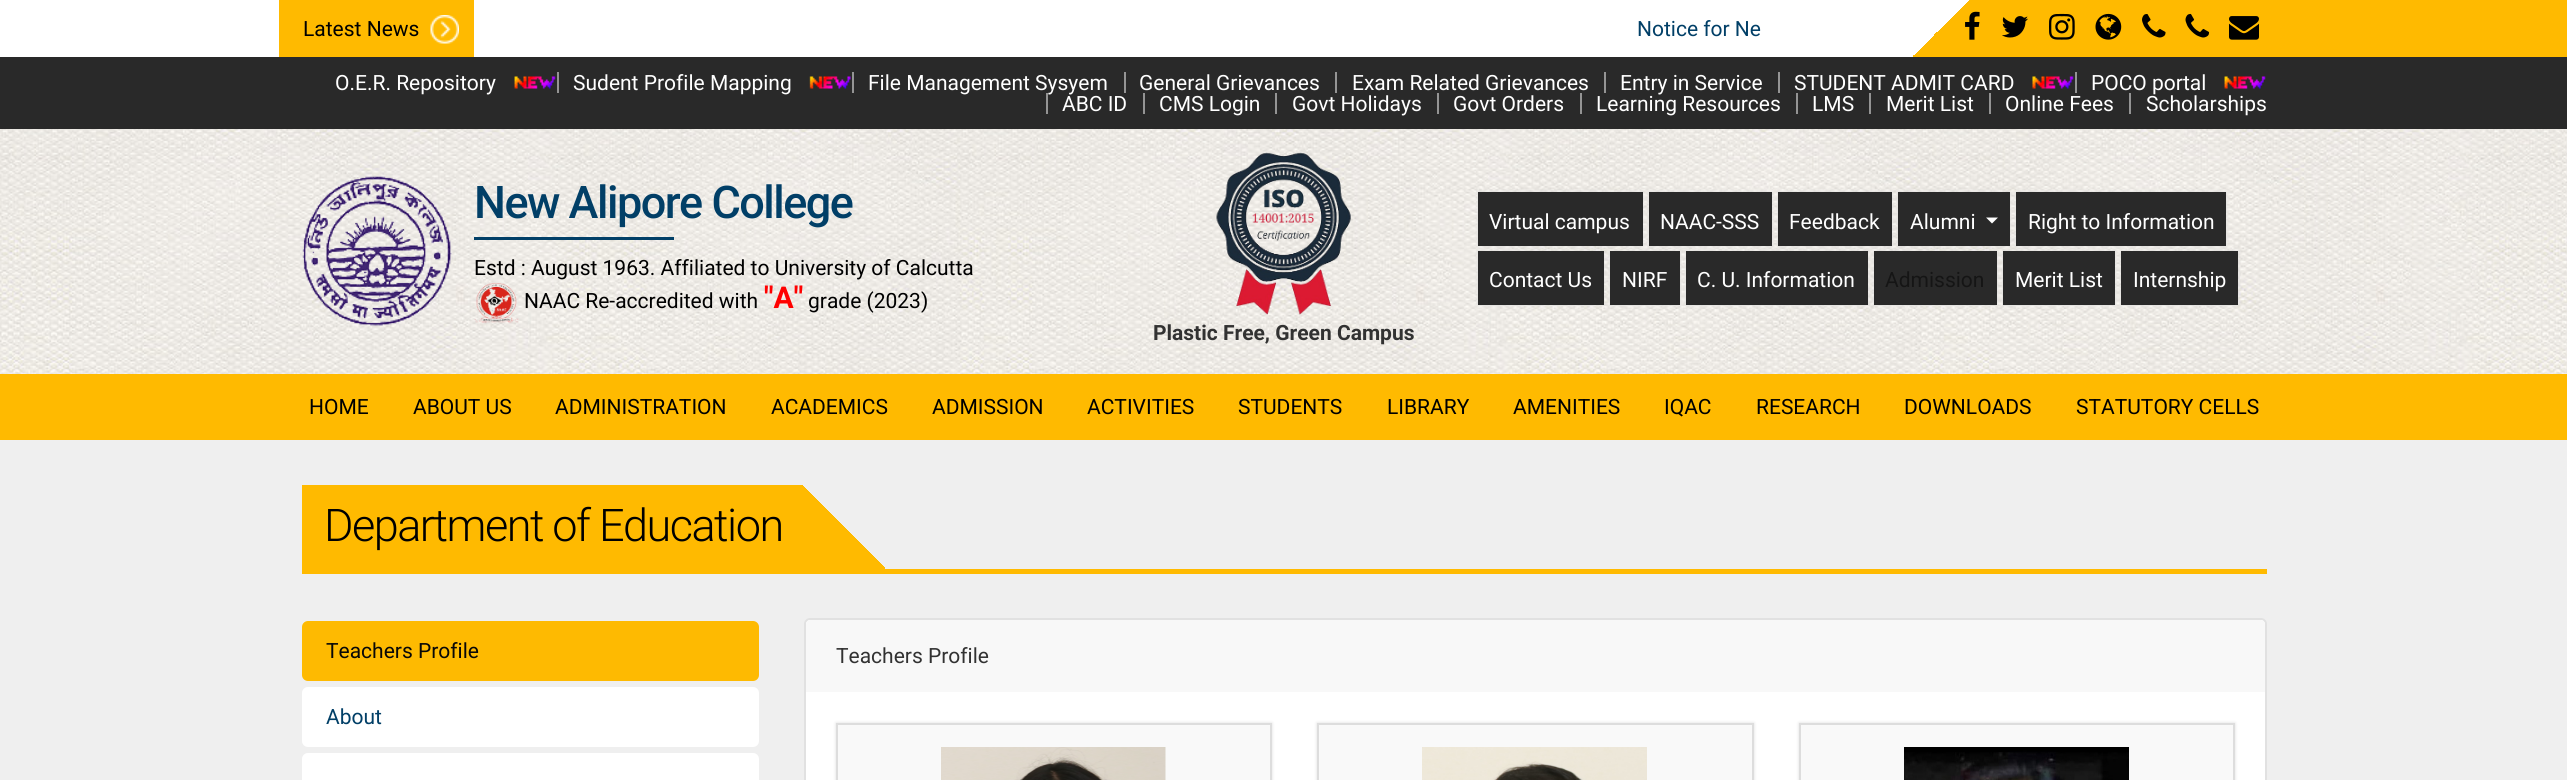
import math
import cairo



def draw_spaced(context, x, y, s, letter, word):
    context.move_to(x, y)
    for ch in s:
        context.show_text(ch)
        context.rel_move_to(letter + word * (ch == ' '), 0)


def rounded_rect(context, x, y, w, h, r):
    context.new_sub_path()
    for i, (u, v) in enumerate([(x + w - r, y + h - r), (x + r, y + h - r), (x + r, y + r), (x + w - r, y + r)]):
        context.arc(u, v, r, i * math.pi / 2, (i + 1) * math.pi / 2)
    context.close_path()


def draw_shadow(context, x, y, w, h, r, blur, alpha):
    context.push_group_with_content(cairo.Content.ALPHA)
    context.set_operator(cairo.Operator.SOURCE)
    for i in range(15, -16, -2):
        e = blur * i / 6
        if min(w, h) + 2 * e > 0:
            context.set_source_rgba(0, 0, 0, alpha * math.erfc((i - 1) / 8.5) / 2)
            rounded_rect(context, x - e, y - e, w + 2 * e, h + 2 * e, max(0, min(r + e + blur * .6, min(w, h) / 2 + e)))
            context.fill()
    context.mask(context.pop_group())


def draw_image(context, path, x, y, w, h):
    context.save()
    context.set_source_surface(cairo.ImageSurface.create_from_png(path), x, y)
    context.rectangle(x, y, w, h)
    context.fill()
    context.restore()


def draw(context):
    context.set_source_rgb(1, 1, 1)
    context.paint()
    draw_image(context, "images/1.png", 0, 129, 2567, 245)
    gradient = cairo.LinearGradient(628, -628, 1940, 685)
    gradient.add_color_stop_rgba(0, 1, 1, 1, 1)
    gradient.add_color_stop_rgba(0.75, 1, 1, 1, 1)
    gradient.add_color_stop_rgba(0.75, 1, 186 / 255, 0, 1)
    gradient.add_color_stop_rgba(1, 1, 186 / 255, 0, 1)
    context.set_source(gradient)
    context.rectangle(1913, 0, 654, 57)
    context.fill()
    context.set_source_rgb(1, 186 / 255, 0)
    context.rectangle(279, 0, 195, 57)
    context.fill()
    draw_image(context, "images/2.png", 430, 15, 29, 29)
    draw_image(context, "images/3.png", 1965, 11, 15, 29)
    draw_image(context, "images/4.png", 2002, 16, 26, 22)
    draw_image(context, "images/5.png", 2049, 13, 26, 27)
    draw_image(context, "images/6.png", 2095, 13, 27, 27)
    draw_image(context, "images/7.png", 2142, 14, 24, 24)
    draw_image(context, "images/8.png", 2185, 13, 25, 25)
    draw_image(context, "images/9.png", 2229, 16, 30, 24)
    context.set_source_rgb(41 / 255, 41 / 255, 41 / 255)
    context.rectangle(0, 57, 2567, 72)
    context.fill()
    draw_image(context, "images/10.png", 514, 76, 42, 13)
    context.set_source_rgb(148 / 255, 148 / 255, 148 / 255)
    context.rectangle(557, 72, 2, 21)
    context.fill()
    draw_image(context, "images/11.png", 809, 76, 42, 13)
    context.rectangle(852, 72, 2, 21)
    context.fill()
    context.rectangle(1124, 72, 2, 21)
    context.fill()
    context.rectangle(1335, 72, 2, 21)
    context.fill()
    context.rectangle(1604, 72, 2, 21)
    context.fill()
    context.rectangle(1778, 72, 2, 21)
    context.fill()
    draw_image(context, "images/12.png", 2032, 76, 42, 13)
    context.rectangle(2075, 72, 2, 21)
    context.fill()
    draw_image(context, "images/13.png", 2224, 76, 42, 13)
    context.rectangle(1143, 93, 2, 21)
    context.fill()
    context.rectangle(1275, 93, 2, 21)
    context.fill()
    context.rectangle(1437, 93, 2, 21)
    context.fill()
    context.rectangle(1580, 93, 2, 21)
    context.fill()
    context.rectangle(1796, 93, 2, 21)
    context.fill()
    context.rectangle(1869, 93, 2, 21)
    context.fill()
    context.rectangle(1989, 93, 2, 21)
    context.fill()
    draw_image(context, "images/14.png", 302, 176, 150, 150)
    context.set_source_rgb(1 / 255, 63 / 255, 103 / 255)
    context.rectangle(474, 237, 200, 3)
    context.fill()
    draw_image(context, "images/15.png", 474, 283, 45, 41)
    context.set_source_rgb(221 / 255, 221 / 255, 221 / 255)
    draw_shadow(context, 1478, 192, 165, 54, 0, 2, 1)
    context.set_source_rgb(41 / 255, 41 / 255, 41 / 255)
    context.rectangle(1478, 192, 165, 54)
    context.fill()
    context.set_source_rgb(221 / 255, 221 / 255, 221 / 255)
    draw_shadow(context, 1649, 192, 123, 54, 0, 2, 1)
    context.set_source_rgb(41 / 255, 41 / 255, 41 / 255)
    context.rectangle(1649, 192, 123, 54)
    context.fill()
    context.set_source_rgb(221 / 255, 221 / 255, 221 / 255)
    draw_shadow(context, 1778, 192, 114, 54, 0, 2, 1)
    context.set_source_rgb(41 / 255, 41 / 255, 41 / 255)
    context.rectangle(1778, 192, 114, 54)
    context.fill()
    context.set_source_rgb(221 / 255, 221 / 255, 221 / 255)
    draw_shadow(context, 2016, 192, 210, 54, 0, 2, 1)
    context.set_source_rgb(41 / 255, 41 / 255, 41 / 255)
    context.rectangle(2016, 192, 210, 54)
    context.fill()
    context.set_source_rgb(221 / 255, 221 / 255, 221 / 255)
    draw_shadow(context, 1478, 251, 126, 54, 0, 2, 1)
    context.set_source_rgb(41 / 255, 41 / 255, 41 / 255)
    context.rectangle(1478, 251, 126, 54)
    context.fill()
    context.set_source_rgb(221 / 255, 221 / 255, 221 / 255)
    draw_shadow(context, 1610, 251, 70, 54, 0, 2, 1)
    context.set_source_rgb(41 / 255, 41 / 255, 41 / 255)
    context.rectangle(1610, 251, 70, 54)
    context.fill()
    context.set_source_rgb(221 / 255, 221 / 255, 221 / 255)
    draw_shadow(context, 1686, 251, 182, 54, 0, 2, 1)
    context.set_source_rgb(41 / 255, 41 / 255, 41 / 255)
    context.rectangle(1686, 251, 182, 54)
    context.fill()
    context.set_source_rgb(221 / 255, 221 / 255, 221 / 255)
    draw_shadow(context, 1874, 251, 123, 54, 0, 2, 1)
    context.set_source_rgb(41 / 255, 41 / 255, 41 / 255)
    context.rectangle(1874, 251, 123, 54)
    context.fill()
    context.set_source_rgb(221 / 255, 221 / 255, 221 / 255)
    draw_shadow(context, 2003, 251, 112, 54, 0, 2, 1)
    context.set_source_rgb(41 / 255, 41 / 255, 41 / 255)
    context.rectangle(2003, 251, 112, 54)
    context.fill()
    context.set_source_rgb(221 / 255, 221 / 255, 221 / 255)
    draw_shadow(context, 1898, 192, 112, 54, 0, 2, 1)
    context.set_source_rgb(41 / 255, 41 / 255, 41 / 255)
    context.rectangle(1898, 192, 112, 54)
    context.fill()
    context.set_source_rgb(1, 1, 1)
    context.new_path()
    context.move_to(1986, 217.5)
    context.line_to(1998, 217.5)
    context.line_to(1992, 223.5)
    context.close_path()
    context.fill()
    context.set_source_rgb(221 / 255, 221 / 255, 221 / 255)
    draw_shadow(context, 2121, 251, 117, 54, 0, 2, 1)
    context.set_source_rgb(41 / 255, 41 / 255, 41 / 255)
    context.rectangle(2121, 251, 117, 54)
    context.fill()
    draw_image(context, "images/16.png", 1216, 152, 135, 163)
    context.set_source_rgb(1, 186 / 255, 0)
    context.rectangle(0, 374, 2567, 66)
    context.fill()
    context.set_source_rgb(239 / 255, 239 / 255, 239 / 255)
    context.rectangle(0, 440, 2567, 340)
    context.fill()
    context.set_source_rgb(1, 186 / 255, 0)
    context.rectangle(302, 569, 1965, 5)
    context.fill()
    context.rectangle(302, 485, 496, 84)
    context.fill()
    gradient = cairo.LinearGradient(800, 570, 887, 483)
    gradient.add_color_stop_rgba(0, 1, 186 / 255, 0, 1)
    gradient.add_color_stop_rgba(0.5, 1, 186 / 255, 0, 1)
    gradient.add_color_stop_rgba(0.5, 239 / 255, 239 / 255, 239 / 255, 1)
    gradient.add_color_stop_rgba(1, 239 / 255, 239 / 255, 239 / 255, 1)
    context.set_source(gradient)
    context.rectangle(798, 485, 87, 84)
    context.fill()
    context.set_source_rgb(254 / 255, 186 / 255, 1 / 255)
    rounded_rect(context, 302, 621, 457, 60, 6)
    context.fill()
    context.set_source_rgb(1, 1, 1)
    rounded_rect(context, 302, 687, 457, 60, 6)
    context.fill()
    rounded_rect(context, 302, 753, 457, 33, 6)
    context.fill()
    rounded_rect(context, 804, 618, 1463, 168, 6)
    context.fill()
    rounded_rect(context, 805, 619, 1461, 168, 5)
    context.set_source_rgba(0, 0, 0, 0.12)
    context.stroke()
    context.set_source_rgb(248 / 255, 248 / 255, 248 / 255)
    context.new_path()
    context.move_to(811, 620)
    context.line_to(2260, 620)
    context.curve_to(2263, 620, 2265, 622, 2265, 625)
    context.line_to(2265, 692)
    context.line_to(806, 692)
    context.line_to(806, 625)
    context.curve_to(806, 622, 808, 620, 811, 620)
    context.close_path()
    context.fill()
    context.set_source_rgb(221 / 255, 221 / 255, 221 / 255)
    draw_shadow(context, 836, 723, 436, 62, 0, 1.5, 1)
    context.set_source_rgb(249 / 255, 249 / 255, 249 / 255)
    context.rectangle(837, 724, 434, 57)
    context.fill_preserve()
    context.set_source_rgb(221 / 255, 221 / 255, 221 / 255)
    context.stroke()
    draw_image(context, "images/17.png", 941, 747, 225, 33)
    context.set_source_rgb(221 / 255, 221 / 255, 221 / 255)
    draw_shadow(context, 1317, 723, 437, 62, 0, 1.5, 1)
    context.set_source_rgb(249 / 255, 249 / 255, 249 / 255)
    context.rectangle(1318, 724, 435, 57)
    context.fill_preserve()
    context.set_source_rgb(221 / 255, 221 / 255, 221 / 255)
    context.stroke()
    draw_image(context, "images/18.png", 1422, 747, 225, 33)
    context.set_source_rgb(221 / 255, 221 / 255, 221 / 255)
    draw_shadow(context, 1799, 723, 436, 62, 0, 1.5, 1)
    context.set_source_rgb(249 / 255, 249 / 255, 249 / 255)
    context.rectangle(1800, 724, 434, 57)
    context.fill_preserve()
    context.set_source_rgb(221 / 255, 221 / 255, 221 / 255)
    context.stroke()
    draw_image(context, "images/19.png", 1904, 747, 225, 33)
    context.select_font_face("Roboto")
    context.set_font_size(21)
    context.set_source_rgb(0, 0, 0)
    context.move_to(303, 36)
    context.show_text("Latest News")
    context.set_source_rgb(1 / 255, 63 / 255, 103 / 255)
    context.move_to(1637, 36)
    context.show_text("Notice for Ne")
    context.set_source_rgb(1, 1, 1)
    context.move_to(335, 90)
    context.show_text("O.E.R. Repository")
    context.move_to(573, 90)
    context.show_text("Sudent Profile Mapping")
    context.move_to(868, 90)
    context.show_text("File Management Sysyem")
    context.move_to(1139, 90)
    context.show_text("General Grievances")
    context.move_to(1352, 90)
    context.show_text("Exam Related Grievances")
    context.move_to(1620, 90)
    context.show_text("Entry in Service")
    context.move_to(1794, 90)
    context.show_text("STUDENT ADMIT CARD")
    context.move_to(2091, 90)
    context.show_text("POCO portal")
    context.set_source_rgb(148 / 255, 148 / 255, 148 / 255)
    context.rectangle(1046, 93, 2, 21)
    context.fill()
    context.set_source_rgb(1, 1, 1)
    context.move_to(1062, 111)
    context.show_text("ABC ID")
    context.move_to(1159, 111)
    context.show_text("CMS Login")
    context.move_to(1292, 111)
    context.show_text("Govt Holidays")
    context.move_to(1453, 111)
    context.show_text("Govt Orders")
    context.move_to(1596, 111)
    context.show_text("Learning Resources")
    context.move_to(1812, 111)
    context.show_text("LMS")
    context.move_to(1886, 111)
    context.show_text("Merit List")
    context.move_to(2005, 111)
    context.show_text("Online Fees")
    context.set_source_rgb(148 / 255, 148 / 255, 148 / 255)
    context.rectangle(2129, 93, 2, 21)
    context.fill()
    context.set_source_rgb(1, 1, 1)
    context.move_to(2146, 111)
    context.show_text("Scholarships")
    context.select_font_face("Roboto Medium")
    context.set_font_size(45)
    context.set_source_rgb(1 / 255, 63 / 255, 103 / 255)
    draw_spaced(context, 474, 218, "New Alipore College", -1.5, 0)
    context.select_font_face("Roboto")
    context.set_font_size(21)
    context.set_source_rgb(0, 0, 0)
    context.move_to(474, 275)
    context.show_text("Estd : August 1963. Affiliated to University of Calcutta")
    context.move_to(524, 308)
    context.show_text("NAAC Re-accredited with")
    context.select_font_face("Roboto", cairo.FontSlant.NORMAL, cairo.FontWeight.BOLD)
    context.set_font_size(30)
    context.set_source_rgb(1, 0, 0)
    context.move_to(764, 308)
    context.show_text("\"A\"")
    context.select_font_face("Roboto")
    context.set_font_size(21)
    context.set_source_rgb(0, 0, 0)
    context.move_to(808, 308)
    context.show_text("grade (2023)")
    context.set_source_rgb(1, 1, 1)
    context.move_to(1489, 229)
    context.show_text("Virtual campus")
    context.move_to(1660, 229)
    context.show_text("NAAC-SSS")
    context.move_to(1789, 229)
    context.show_text("Feedback")
    context.move_to(1910, 229)
    context.show_text("Alumni")
    context.move_to(2028, 229)
    context.show_text("Right to Information")
    context.move_to(1489, 287)
    context.show_text("Contact Us")
    context.move_to(1622, 287)
    context.show_text("NIRF")
    context.move_to(1697, 287)
    context.show_text("C. U. Information")
    context.set_source_rgb(21 / 255, 21 / 255, 21 / 255)
    context.move_to(1885, 287)
    context.show_text("Admission")
    context.set_source_rgb(1, 1, 1)
    context.move_to(2015, 287)
    context.show_text("Merit List")
    context.move_to(2133, 287)
    context.show_text("Internship")
    context.select_font_face("Roboto", cairo.FontSlant.NORMAL, cairo.FontWeight.BOLD)
    context.set_source_rgb(50 / 255, 50 / 255, 50 / 255)
    context.move_to(1153, 340)
    context.show_text("Plastic Free, Green Campus")
    context.select_font_face("Roboto")
    context.set_source_rgb(0, 0, 0)
    context.move_to(309, 414)
    context.show_text("HOME")
    context.move_to(413, 414)
    context.show_text("ABOUT US")
    context.move_to(555, 414)
    context.show_text("ADMINISTRATION")
    context.move_to(771, 414)
    context.show_text("ACADEMICS")
    context.move_to(932, 414)
    context.show_text("ADMISSION")
    context.move_to(1087, 414)
    context.show_text("ACTIVITIES")
    context.move_to(1238, 414)
    context.show_text("STUDENTS")
    context.move_to(1387, 414)
    context.show_text("LIBRARY")
    context.move_to(1513, 414)
    context.show_text("AMENITIES")
    context.move_to(1664, 414)
    context.show_text("IQAC")
    context.move_to(1756, 414)
    context.show_text("RESEARCH")
    context.move_to(1904, 414)
    context.show_text("DOWNLOADS")
    context.move_to(2076, 414)
    context.show_text("STATUTORY CELLS")
    context.select_font_face("Roboto Light")
    context.set_font_size(45)
    draw_spaced(context, 324, 541, "Department of Education", -1.5, 0)
    context.select_font_face("Roboto")
    context.set_font_size(21)
    context.set_source_rgb(8 / 255, 8 / 255, 8 / 255)
    context.move_to(326, 658)
    context.show_text("Teachers Profile")
    context.set_source_rgb(1 / 255, 63 / 255, 103 / 255)
    context.move_to(326, 724)
    context.show_text("About")
    context.set_source_rgb(50 / 255, 50 / 255, 50 / 255)
    context.move_to(836, 663)
    context.show_text("Teachers Profile")


surface = cairo.ImageSurface(cairo.Format.RGB24, 2567, 780)
context = cairo.Context(surface)
options = cairo.FontOptions()
options.set_hint_metrics(cairo.HintMetrics.OFF)
options.set_hint_style(cairo.HintStyle.NONE)
context.set_font_options(options)
context.set_miter_limit(4)
draw(context)
surface.write_to_png("out.png")
